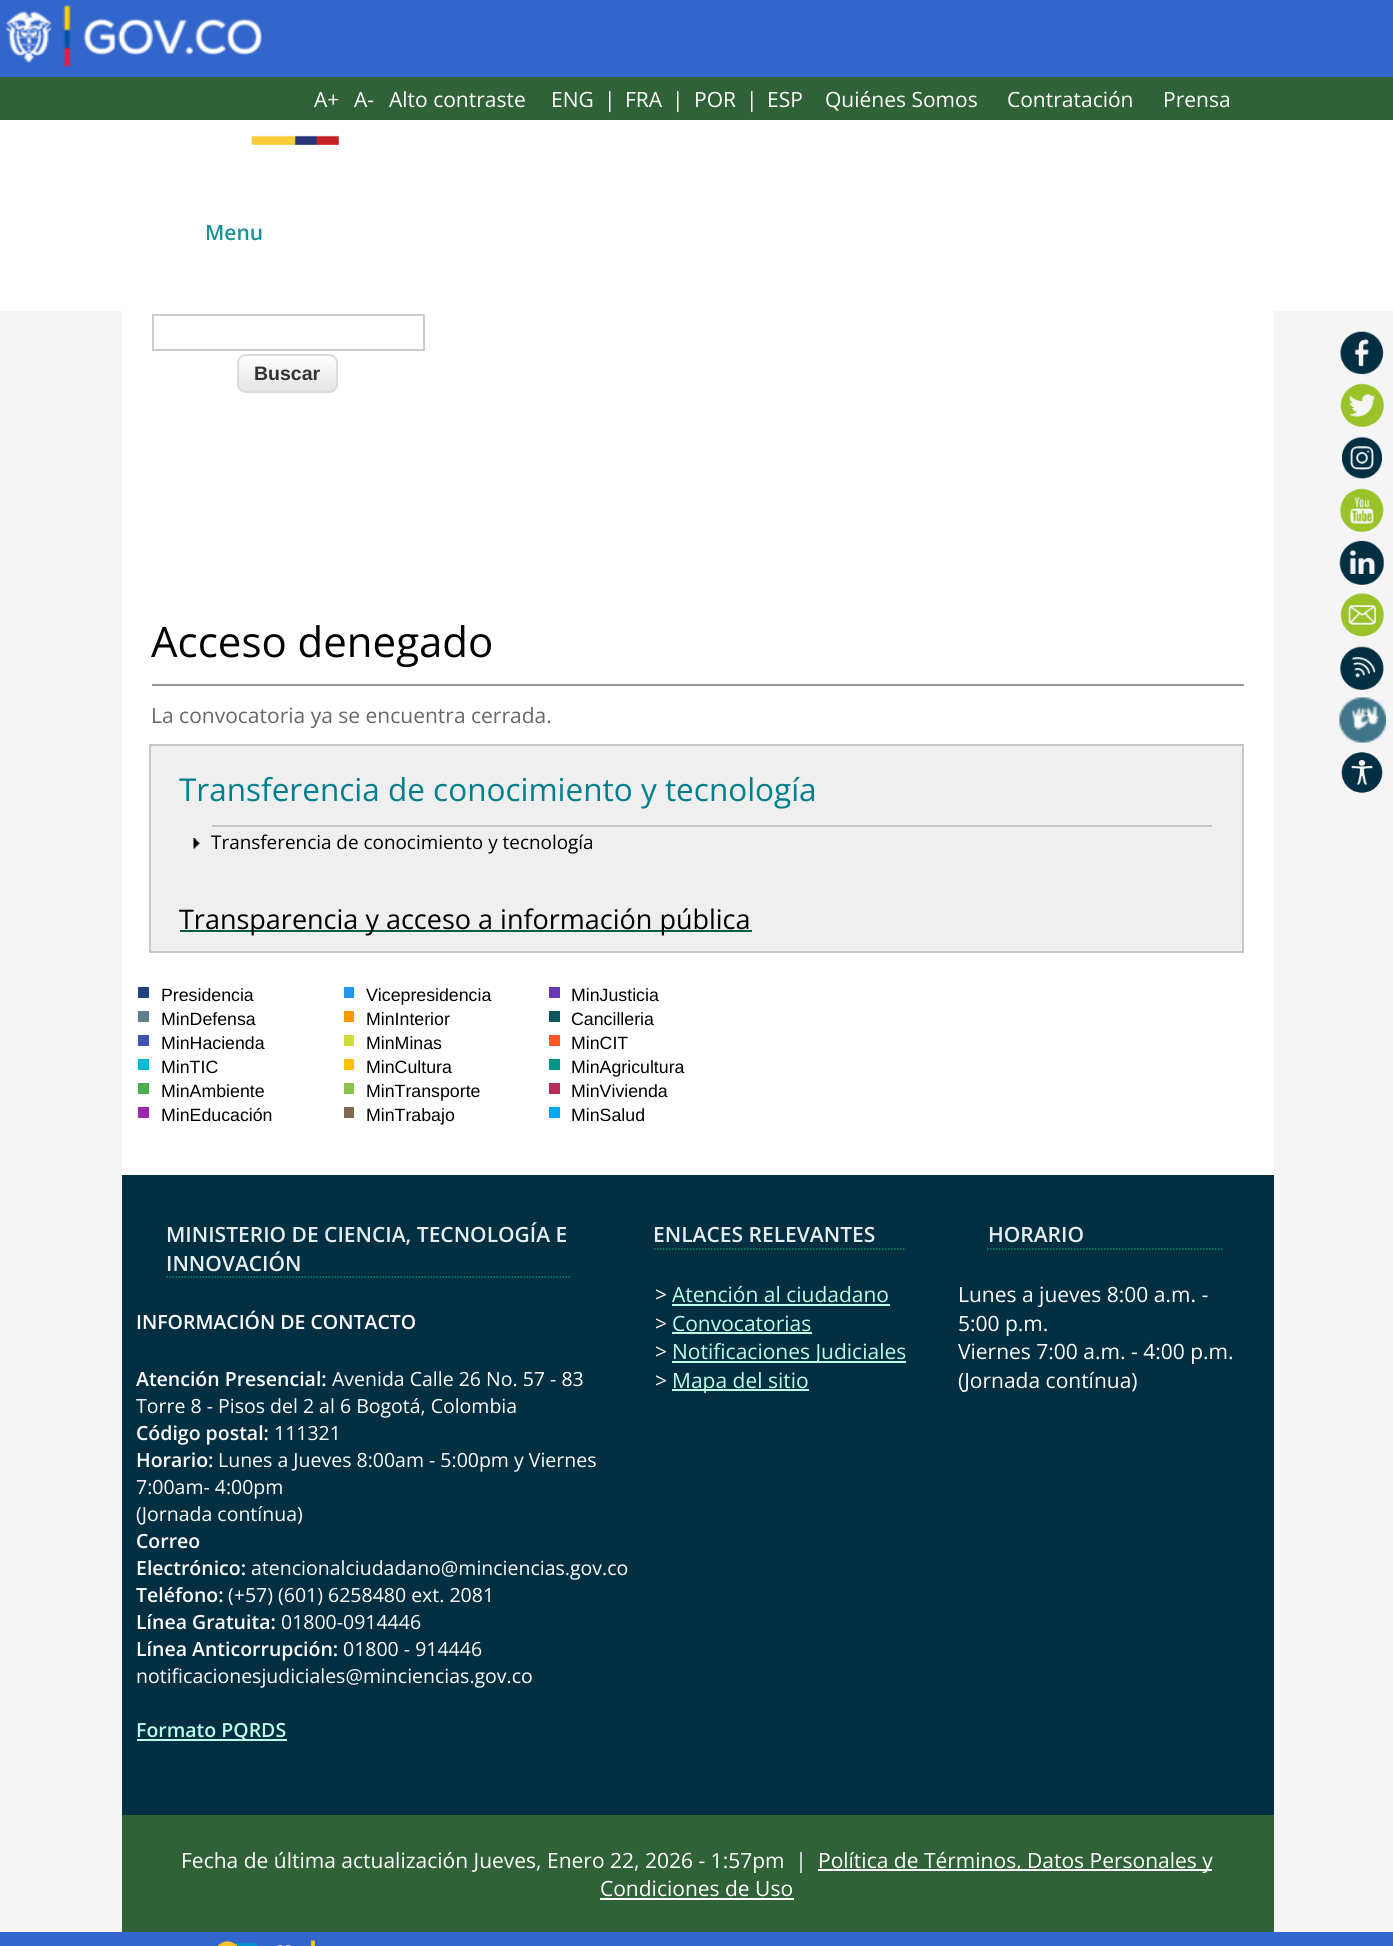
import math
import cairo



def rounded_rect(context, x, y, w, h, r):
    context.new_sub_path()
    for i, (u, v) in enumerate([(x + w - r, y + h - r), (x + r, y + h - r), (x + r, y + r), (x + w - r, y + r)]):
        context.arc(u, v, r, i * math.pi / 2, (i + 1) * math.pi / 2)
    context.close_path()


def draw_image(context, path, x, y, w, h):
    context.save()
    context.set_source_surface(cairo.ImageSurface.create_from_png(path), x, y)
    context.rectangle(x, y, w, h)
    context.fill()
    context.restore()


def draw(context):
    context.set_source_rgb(245 / 255, 245 / 255, 245 / 255)
    context.paint()
    context.set_source_rgb(1, 1, 1)
    context.rectangle(0, 120, 1393, 191)
    context.fill()
    context.set_source_rgb(48 / 255, 98 / 255, 56 / 255)
    context.rectangle(0, 77, 1393, 43)
    context.fill()
    context.set_source_rgb(51 / 255, 102 / 255, 204 / 255)
    context.rectangle(0, 0, 1393, 77)
    context.fill()
    draw_image(context, "images/1.png", 5, 5, 257, 62)
    draw_image(context, "images/2.png", 1340, 331, 44, 44)
    draw_image(context, "images/3.png", 1340, 383, 44, 44)
    draw_image(context, "images/4.png", 1342, 436, 40, 43)
    draw_image(context, "images/5.png", 1340, 488, 44, 45)
    draw_image(context, "images/6.png", 1339, 540, 45, 45)
    draw_image(context, "images/7.png", 1340, 593, 44, 44)
    draw_image(context, "images/8.png", 1340, 646, 44, 44)
    draw_image(context, "images/9.png", 1339, 697, 47, 46)
    draw_image(context, "images/10.png", 1341, 752, 42, 41)
    draw_image(context, "images/11.png", 251, 135, 88, 10)
    context.set_source_rgb(1, 1, 1)
    context.rectangle(122, 311, 1152, 864)
    context.fill()
    context.rectangle(153, 315, 271, 35)
    context.set_source_rgb(204 / 255, 204 / 255, 204 / 255)
    context.stroke()
    context.save()
    rounded_rect(context, 237, 354, 101, 39, 9)
    context.clip()
    gradient = cairo.LinearGradient(287, 356, 287, 392)
    gradient.add_color_stop_rgba(0, 1, 1, 1, 1)
    gradient.add_color_stop_rgba(1, 227 / 255, 227 / 255, 227 / 255, 1)
    context.set_source(gradient)
    context.rectangle(237, 356, 101, 36)
    context.fill()
    context.restore()
    rounded_rect(context, 238, 355, 99, 37, 8)
    context.set_source_rgb(219 / 255, 219 / 255, 219 / 255)
    context.stroke()
    context.set_source_rgb(153 / 255, 153 / 255, 153 / 255)
    context.rectangle(152, 684, 1092, 2)
    context.fill()
    context.set_source_rgb(239 / 255, 239 / 255, 239 / 255)
    context.rectangle(150, 745, 1093, 207)
    context.fill_preserve()
    context.set_source_rgb(199 / 255, 199 / 255, 199 / 255)
    context.stroke()
    context.rectangle(212, 825, 1000, 2)
    context.fill()
    draw_image(context, "images/12.png", 193, 838, 7, 11)
    context.set_source_rgb(0, 95 / 255, 67 / 255)
    context.rectangle(180, 930, 572, 2)
    context.fill()
    context.set_source_rgb(32 / 255, 66 / 255, 127 / 255)
    context.rectangle(138, 987, 11, 11)
    context.fill()
    context.set_source_rgb(34 / 255, 150 / 255, 243 / 255)
    context.rectangle(344, 987, 10, 11)
    context.fill()
    context.set_source_rgb(102 / 255, 58 / 255, 183 / 255)
    context.rectangle(549, 987, 11, 11)
    context.fill()
    context.set_source_rgb(96 / 255, 125 / 255, 139 / 255)
    context.rectangle(138, 1011, 11, 11)
    context.fill()
    context.set_source_rgb(1, 152 / 255, 2 / 255)
    context.rectangle(344, 1011, 10, 11)
    context.fill()
    context.set_source_rgb(8 / 255, 88 / 255, 93 / 255)
    context.rectangle(549, 1011, 11, 11)
    context.fill()
    context.set_source_rgb(63 / 255, 81 / 255, 181 / 255)
    context.rectangle(138, 1035, 11, 11)
    context.fill()
    context.set_source_rgb(205 / 255, 221 / 255, 57 / 255)
    context.rectangle(344, 1035, 10, 11)
    context.fill()
    context.set_source_rgb(1, 87 / 255, 35 / 255)
    context.rectangle(549, 1035, 11, 11)
    context.fill()
    context.set_source_rgb(1 / 255, 188 / 255, 213 / 255)
    context.rectangle(138, 1059, 11, 11)
    context.fill()
    context.set_source_rgb(1, 193 / 255, 7 / 255)
    context.rectangle(344, 1059, 10, 11)
    context.fill()
    context.set_source_rgb(0, 150 / 255, 135 / 255)
    context.rectangle(549, 1059, 11, 11)
    context.fill()
    context.set_source_rgb(76 / 255, 175 / 255, 79 / 255)
    context.rectangle(138, 1083, 11, 11)
    context.fill()
    context.set_source_rgb(139 / 255, 196 / 255, 74 / 255)
    context.rectangle(344, 1083, 10, 11)
    context.fill()
    context.set_source_rgb(181 / 255, 44 / 255, 87 / 255)
    context.rectangle(549, 1083, 11, 11)
    context.fill()
    context.set_source_rgb(155 / 255, 40 / 255, 176 / 255)
    context.rectangle(138, 1107, 11, 11)
    context.fill()
    context.set_source_rgb(128 / 255, 103 / 255, 81 / 255)
    context.rectangle(344, 1107, 10, 11)
    context.fill()
    context.set_source_rgb(4 / 255, 169 / 255, 244 / 255)
    context.rectangle(549, 1107, 11, 11)
    context.fill()
    context.set_source_rgb(3 / 255, 47 / 255, 66 / 255)
    context.rectangle(122, 1175, 1152, 640)
    context.fill()
    context.new_path()
    context.move_to(166.5, 1277)
    context.line_to(571.5, 1277)
    context.set_source_rgb(0, 142 / 255, 101 / 255)
    context.set_line_width(1.5)
    context.set_dash([1.5, 1.5])
    context.stroke()
    context.set_source_rgb(187 / 255, 1, 235 / 255)
    context.rectangle(137, 1739, 150, 2)
    context.fill()
    context.new_path()
    context.move_to(654, 1249)
    context.line_to(906, 1249)
    context.set_source_rgb(0, 142 / 255, 101 / 255)
    context.stroke()
    context.set_source_rgb(187 / 255, 1, 235 / 255)
    context.rectangle(672, 1304, 218, 2)
    context.fill()
    context.rectangle(672, 1332, 140, 2)
    context.fill()
    context.rectangle(672, 1361, 234, 2)
    context.fill()
    context.rectangle(672, 1389, 137, 2)
    context.fill()
    context.new_path()
    context.move_to(987, 1249)
    context.line_to(1222.5, 1249)
    context.set_source_rgb(0, 142 / 255, 101 / 255)
    context.stroke()
    context.set_source_rgb(48 / 255, 98 / 255, 56 / 255)
    context.rectangle(122, 1815, 1152, 117)
    context.fill()
    context.set_source_rgb(1, 1, 1)
    context.rectangle(818, 1869, 394, 2)
    context.fill()
    context.rectangle(600, 1898, 194, 2)
    context.fill()
    context.set_source_rgb(51 / 255, 102 / 255, 204 / 255)
    context.rectangle(0, 1932, 1393, 14)
    context.fill()
    draw_image(context, "images/13.png", 217, 1941, 41, 5)
    draw_image(context, "images/14.png", 276, 1940, 39, 6)
    context.select_font_face("Open Sans")
    context.set_font_size(21)
    context.set_source_rgb(1, 1, 1)
    context.move_to(314, 107)
    context.show_text("A+")
    context.move_to(354, 107)
    context.show_text("A-")
    context.move_to(389, 107)
    context.show_text("Alto contraste")
    context.move_to(551, 107)
    context.show_text("ENG")
    context.move_to(604, 107)
    context.show_text("|")
    context.move_to(625, 107)
    context.show_text("FRA")
    context.move_to(672, 107)
    context.show_text("|")
    context.move_to(694, 107)
    context.show_text("POR")
    context.move_to(746, 107)
    context.show_text("|")
    context.move_to(767, 107)
    context.show_text("ESP")
    context.move_to(825, 107)
    context.show_text("Quiénes Somos")
    context.move_to(1007, 107)
    context.show_text("Contratación")
    context.move_to(1163, 107)
    context.show_text("Prensa")
    context.select_font_face("Open Sans SemiBold")
    context.set_source_rgb(24 / 255, 145 / 255, 152 / 255)
    context.move_to(205, 240)
    context.show_text("Menu")
    context.select_font_face("Liberation Sans", cairo.FontSlant.NORMAL, cairo.FontWeight.BOLD)
    context.set_font_size(19.5)
    context.set_source_rgb(51 / 255, 51 / 255, 51 / 255)
    context.move_to(254, 380)
    context.show_text("Buscar")
    context.select_font_face("Open Sans")
    context.set_font_size(42)
    context.set_source_rgb(0, 0, 0)
    context.move_to(151, 657)
    context.show_text("Acceso denegado")
    context.set_font_size(21)
    context.set_source_rgb(103 / 255, 103 / 255, 103 / 255)
    context.move_to(151, 723)
    context.show_text("La convocatoria ya se encuentra cerrada.")
    context.set_font_size(31.5)
    context.set_source_rgb(3 / 255, 126 / 255, 141 / 255)
    context.move_to(179, 801)
    context.show_text("Transferencia de conocimiento y tecnología")
    context.set_font_size(18.9)
    context.set_source_rgb(0, 0, 0)
    context.move_to(211, 849)
    context.show_text("Transferencia de conocimiento y tecnología")
    context.set_font_size(27)
    context.move_to(179, 929)
    context.show_text("Transparencia y acceso a información pública")
    context.select_font_face("Liberation Sans")
    context.set_font_size(17.75)
    context.move_to(161, 1001)
    context.show_text("Presidencia")
    context.move_to(366, 1001)
    context.show_text("Vicepresidencia")
    context.move_to(571, 1001)
    context.show_text("MinJusticia")
    context.move_to(161, 1025)
    context.show_text("MinDefensa")
    context.move_to(366, 1025)
    context.show_text("MinInterior")
    context.move_to(571, 1025)
    context.show_text("Cancilleria")
    context.move_to(161, 1049)
    context.show_text("MinHacienda")
    context.move_to(366, 1049)
    context.show_text("MinMinas")
    context.move_to(571, 1049)
    context.show_text("MinCIT")
    context.move_to(161, 1073)
    context.show_text("MinTIC")
    context.move_to(366, 1073)
    context.show_text("MinCultura")
    context.move_to(571, 1073)
    context.show_text("MinAgricultura")
    context.move_to(161, 1097)
    context.show_text("MinAmbiente")
    context.move_to(366, 1097)
    context.show_text("MinTransporte")
    context.move_to(571, 1097)
    context.show_text("MinVivienda")
    context.move_to(161, 1121)
    context.show_text("MinEducación")
    context.move_to(366, 1121)
    context.show_text("MinTrabajo")
    context.move_to(571, 1121)
    context.show_text("MinSalud")
    context.select_font_face("Open Sans SemiBold")
    context.set_font_size(21)
    context.set_source_rgb(230 / 255, 238 / 255, 239 / 255)
    context.move_to(166, 1242)
    context.show_text("MINISTERIO DE CIENCIA, TECNOLOGÍA E")
    context.move_to(166, 1271)
    context.show_text("INNOVACIÓN")
    context.set_font_size(19.5)
    context.set_source_rgb(1, 1, 1)
    context.move_to(136, 1329)
    context.show_text("INFORMACIÓN DE CONTACTO")
    context.move_to(136, 1386)
    context.show_text("Atención Presencial:")
    context.select_font_face("Open Sans")
    context.move_to(332, 1386)
    context.show_text("Avenida Calle 26 No. 57 - 83")
    context.move_to(136, 1413)
    context.show_text("Torre 8 - Pisos del 2 al 6 Bogotá, Colombia")
    context.select_font_face("Open Sans SemiBold")
    context.move_to(136, 1440)
    context.show_text("Código postal:")
    context.select_font_face("Open Sans")
    context.move_to(274, 1440)
    context.show_text("111321")
    context.select_font_face("Open Sans SemiBold")
    context.move_to(136, 1467)
    context.show_text("Horario:")
    context.select_font_face("Open Sans")
    context.move_to(218, 1467)
    context.show_text("Lunes a Jueves 8:00am - 5:00pm y Viernes")
    context.move_to(136, 1494)
    context.show_text("7:00am- 4:00pm")
    context.move_to(136, 1521)
    context.show_text("(Jornada contínua)")
    context.select_font_face("Open Sans SemiBold")
    context.move_to(136, 1548)
    context.show_text("Correo")
    context.move_to(136, 1575)
    context.show_text("Electrónico:")
    context.select_font_face("Open Sans")
    context.move_to(251, 1575)
    context.show_text("atencionalciudadano@minciencias.gov.co")
    context.select_font_face("Open Sans SemiBold")
    context.move_to(136, 1602)
    context.show_text("Teléfono:")
    context.select_font_face("Open Sans")
    context.move_to(228, 1602)
    context.show_text("(+57) (601) 6258480 ext. 2081")
    context.select_font_face("Open Sans SemiBold")
    context.move_to(136, 1629)
    context.show_text("Línea Gratuita:")
    context.select_font_face("Open Sans")
    context.move_to(281, 1629)
    context.show_text("01800-0914446")
    context.select_font_face("Open Sans SemiBold")
    context.move_to(136, 1656)
    context.show_text("Línea Anticorrupción:")
    context.select_font_face("Open Sans")
    context.move_to(343, 1656)
    context.show_text("01800 - 914446")
    context.move_to(136, 1683)
    context.show_text("notificacionesjudiciales@minciencias.gov.co")
    context.select_font_face("Open Sans SemiBold")
    context.set_source_rgb(187 / 255, 1, 235 / 255)
    context.move_to(136, 1737)
    context.show_text("Formato PQRDS")
    context.set_font_size(21)
    context.set_source_rgb(230 / 255, 238 / 255, 239 / 255)
    context.move_to(653, 1242)
    context.show_text("ENLACES RELEVANTES")
    context.select_font_face("Open Sans")
    context.set_source_rgb(1, 1, 1)
    context.move_to(655, 1302)
    context.show_text(">")
    context.set_source_rgb(187 / 255, 1, 235 / 255)
    context.move_to(672, 1302)
    context.show_text("Atención al ciudadano")
    context.set_source_rgb(1, 1, 1)
    context.move_to(655, 1331)
    context.show_text(">")
    context.set_source_rgb(187 / 255, 1, 235 / 255)
    context.move_to(672, 1331)
    context.show_text("Convocatorias")
    context.set_source_rgb(1, 1, 1)
    context.move_to(655, 1359)
    context.show_text(">")
    context.set_source_rgb(187 / 255, 1, 235 / 255)
    context.move_to(672, 1359)
    context.show_text("Notificaciones Judiciales")
    context.set_source_rgb(1, 1, 1)
    context.move_to(655, 1388)
    context.show_text(">")
    context.set_source_rgb(187 / 255, 1, 235 / 255)
    context.move_to(672, 1388)
    context.show_text("Mapa del sitio")
    context.select_font_face("Open Sans SemiBold")
    context.set_source_rgb(230 / 255, 238 / 255, 239 / 255)
    context.move_to(988, 1242)
    context.show_text("HORARIO")
    context.select_font_face("Open Sans")
    context.set_source_rgb(1, 1, 1)
    context.move_to(958, 1302)
    context.show_text("Lunes a jueves 8:00 a.m. -")
    context.move_to(958, 1331)
    context.show_text("5:00 p.m.")
    context.move_to(958, 1359)
    context.show_text("Viernes 7:00 a.m. - 4:00 p.m.")
    context.move_to(958, 1388)
    context.show_text("(Jornada contínua)")
    context.move_to(181, 1868)
    context.show_text("Fecha de última actualización Jueves, Enero 22, 2026 - 1:57pm  |")
    context.move_to(818, 1868)
    context.show_text("Política de Términos, Datos Personales y")
    context.move_to(600, 1896)
    context.show_text("Condiciones de Uso")


surface = cairo.ImageSurface(cairo.Format.RGB24, 1393, 1946)
context = cairo.Context(surface)
options = cairo.FontOptions()
options.set_hint_metrics(cairo.HintMetrics.OFF)
options.set_hint_style(cairo.HintStyle.NONE)
context.set_font_options(options)
context.set_miter_limit(4)
draw(context)
surface.write_to_png("out.png")
